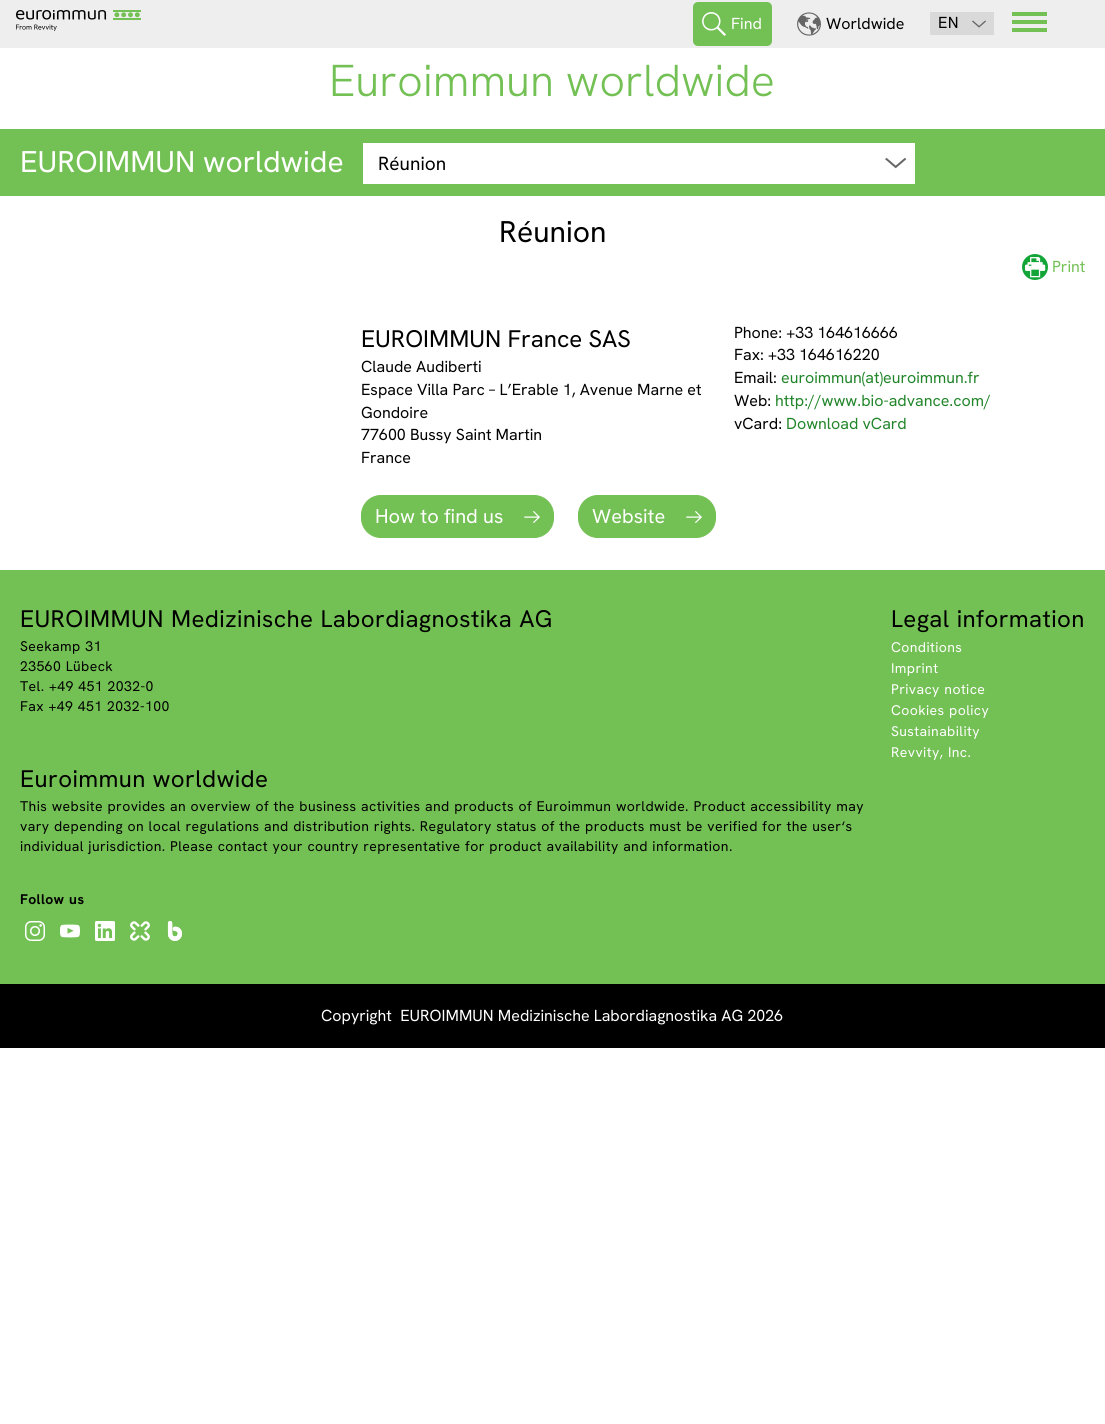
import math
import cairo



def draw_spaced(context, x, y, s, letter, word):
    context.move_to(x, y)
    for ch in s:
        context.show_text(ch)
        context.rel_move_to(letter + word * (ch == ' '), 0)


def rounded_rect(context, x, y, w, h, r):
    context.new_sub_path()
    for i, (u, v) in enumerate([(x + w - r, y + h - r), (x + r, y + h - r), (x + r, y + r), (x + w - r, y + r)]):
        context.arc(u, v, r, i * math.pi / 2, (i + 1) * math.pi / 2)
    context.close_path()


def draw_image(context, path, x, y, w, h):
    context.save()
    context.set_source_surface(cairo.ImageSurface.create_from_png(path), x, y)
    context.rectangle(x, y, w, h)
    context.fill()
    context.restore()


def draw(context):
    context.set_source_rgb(1, 1, 1)
    context.paint()
    context.set_source_rgb(238 / 255, 238 / 255, 238 / 255)
    context.rectangle(0, 0, 1105, 48)
    context.fill()
    draw_image(context, "images/1.png", 16, 10, 125, 21)
    context.set_source_rgb(115 / 255, 192 / 255, 84 / 255)
    rounded_rect(context, 693, 2, 79, 44, 5)
    context.fill()
    draw_image(context, "images/2.png", 702, 12, 24, 24)
    draw_image(context, "images/3.png", 797, 12, 24, 24)
    context.set_source_rgb(217 / 255, 217 / 255, 217 / 255)
    context.rectangle(930, 12, 64, 23)
    context.fill()
    draw_image(context, "images/4.png", 972, 20, 14, 8)
    context.set_source_rgb(115 / 255, 192 / 255, 84 / 255)
    context.rectangle(1012, 12, 35, 4)
    context.fill()
    context.rectangle(1012, 20, 35, 4)
    context.fill()
    context.rectangle(1012, 28, 35, 4)
    context.fill()
    context.rectangle(0, 129, 1105, 67)
    context.fill()
    context.set_source_rgb(1, 1, 1)
    context.rectangle(363, 143, 552, 41)
    context.fill()
    draw_image(context, "images/5.png", 885, 157, 22, 12)
    draw_image(context, "images/6.png", 1022, 254, 26, 26)
    context.set_source_rgb(115 / 255, 192 / 255, 84 / 255)
    rounded_rect(context, 361.5, 495.5, 192, 42, 19.5)
    context.fill_preserve()
    context.set_line_width(1)
    context.stroke()
    draw_image(context, "images/7.png", 524, 511, 16, 12)
    rounded_rect(context, 578.5, 495.5, 137, 42, 19.5)
    context.fill_preserve()
    context.stroke()
    draw_image(context, "images/7.png", 686, 511, 16, 12)
    context.rectangle(0, 570, 1105, 414)
    context.fill()
    draw_image(context, "images/8.png", 25, 921, 20, 20)
    draw_image(context, "images/9.png", 60, 924, 20, 14)
    draw_image(context, "images/10.png", 95, 921, 20, 20)
    draw_image(context, "images/11.png", 130, 921, 20, 20)
    draw_image(context, "images/12.png", 167, 921, 16, 20)
    context.set_source_rgb(0, 0, 0)
    context.rectangle(0, 984, 1105, 64)
    context.fill()
    context.select_font_face("Hanken Grotesk")
    context.set_font_size(16)
    context.set_source_rgb(1, 1, 1)
    context.move_to(731, 29)
    context.show_text("Find")
    context.set_source_rgb(0, 0, 0)
    context.move_to(826, 29)
    context.show_text("Worldwide")
    draw_spaced(context, 938, 28, "EN", 0.4, 0)
    context.select_font_face("Hanken Grotesk Light")
    context.set_font_size(44.75)
    context.set_source_rgb(115 / 255, 192 / 255, 84 / 255)
    context.move_to(329, 96)
    context.show_text("Euroimmun worldwide")
    context.select_font_face("Hanken Grotesk")
    context.set_font_size(30)
    context.set_source_rgb(1, 1, 1)
    context.move_to(20, 172)
    context.show_text("EUROIMMUN worldwide")
    context.set_font_size(19)
    context.set_source_rgb(0, 0, 0)
    context.move_to(378, 170)
    context.show_text("Réunion")
    context.set_font_size(30)
    context.move_to(499, 242)
    context.show_text("Réunion")
    context.set_font_size(16)
    context.set_source_rgb(115 / 255, 192 / 255, 84 / 255)
    context.move_to(1052, 272)
    context.show_text("Print")
    context.set_font_size(24)
    context.set_source_rgb(0, 0, 0)
    context.move_to(361, 347)
    context.show_text("EUROIMMUN France SAS")
    context.set_font_size(16)
    context.move_to(361, 372)
    context.show_text("Claude Audiberti")
    context.move_to(361, 395)
    context.show_text("Espace Villa Parc – L’Erable 1, Avenue Marne et")
    context.move_to(361, 418)
    context.show_text("Gondoire")
    context.move_to(361, 440)
    context.show_text("77600 Bussy Saint Martin")
    context.move_to(361, 463)
    context.show_text("France")
    context.move_to(734, 338)
    context.show_text("Phone: +33 164616666")
    context.move_to(734, 360)
    context.show_text("Fax: +33 164616220")
    context.move_to(734, 383)
    context.show_text("Email:")
    context.set_source_rgb(33 / 255, 133 / 255, 41 / 255)
    context.move_to(781, 383)
    context.show_text("euroimmun(at)euroimmun.fr")
    context.set_source_rgb(0, 0, 0)
    context.move_to(734, 406)
    context.show_text("Web:")
    context.set_source_rgb(33 / 255, 133 / 255, 41 / 255)
    context.move_to(775, 406)
    context.show_text("http://www.bio-advance.com/")
    context.set_source_rgb(0, 0, 0)
    context.move_to(734, 429)
    context.show_text("vCard:")
    context.set_source_rgb(33 / 255, 133 / 255, 41 / 255)
    context.move_to(786, 429)
    context.show_text("Download vCard")
    context.set_font_size(20)
    context.set_source_rgb(1, 1, 1)
    context.move_to(375, 523)
    context.show_text("How to find us")
    context.move_to(592, 523)
    context.show_text("Website")
    context.set_font_size(24)
    context.set_source_rgb(0, 0, 0)
    draw_spaced(context, 20, 627, "EUROIMMUN Medizinische Labordiagnostika AG", 0.4, 0.5)
    context.set_font_size(14)
    draw_spaced(context, 20, 651, "Seekamp 31", 0.4, 0.5)
    draw_spaced(context, 20, 671, "23560 Lübeck", 0.4, 0.5)
    draw_spaced(context, 20, 691, "Tel. +49 451 2032-0", 0.4, 0.5)
    draw_spaced(context, 20, 711, "Fax +49 451 2032-100", 0.4, 0.5)
    context.set_font_size(24)
    draw_spaced(context, 891, 627, "Legal information", 0.4, 0.5)
    context.set_font_size(14)
    context.set_source_rgb(1, 1, 1)
    draw_spaced(context, 891, 652, "Conditions", 0.4, 0)
    draw_spaced(context, 891, 673, "Imprint", 0.4, 0)
    draw_spaced(context, 891, 694, "Privacy notice", 0.4, 0.5)
    draw_spaced(context, 891, 715, "Cookies policy", 0.4, 0.5)
    draw_spaced(context, 891, 736, "Sustainability", 0.4, 0)
    draw_spaced(context, 891, 757, "Revvity, Inc.", 0.4, 0.5)
    context.set_font_size(24)
    context.set_source_rgb(0, 0, 0)
    draw_spaced(context, 20, 787, "Euroimmun worldwide", 0.4, 0)
    context.set_font_size(14)
    draw_spaced(context, 20, 811, "This website provides an overview of the business activities and products of Euroimmun worldwide. Product accessibility may", 0.4, 0.5)
    draw_spaced(context, 20, 831, "vary depending on local regulations and distribution rights. Regulatory status of the products must be verified for the user‘s", 0.4, 0.5)
    draw_spaced(context, 20, 851, "individual jurisdiction. Please contact your country representative for product availability and information.", 0.4, 0.5)
    context.select_font_face("Hanken Grotesk", cairo.FontSlant.NORMAL, cairo.FontWeight.BOLD)
    draw_spaced(context, 20, 904, "Follow us", 0.4, 0.5)
    context.select_font_face("Hanken Grotesk")
    context.set_font_size(16)
    context.set_source_rgb(1, 1, 1)
    context.move_to(321, 1021)
    context.show_text("Copyright  EUROIMMUN Medizinische Labordiagnostika AG 2026")


surface = cairo.ImageSurface(cairo.Format.RGB24, 1105, 1424)
context = cairo.Context(surface)
options = cairo.FontOptions()
options.set_hint_metrics(cairo.HintMetrics.OFF)
options.set_hint_style(cairo.HintStyle.NONE)
context.set_font_options(options)
context.set_miter_limit(4)
draw(context)
surface.write_to_png("out.png")
